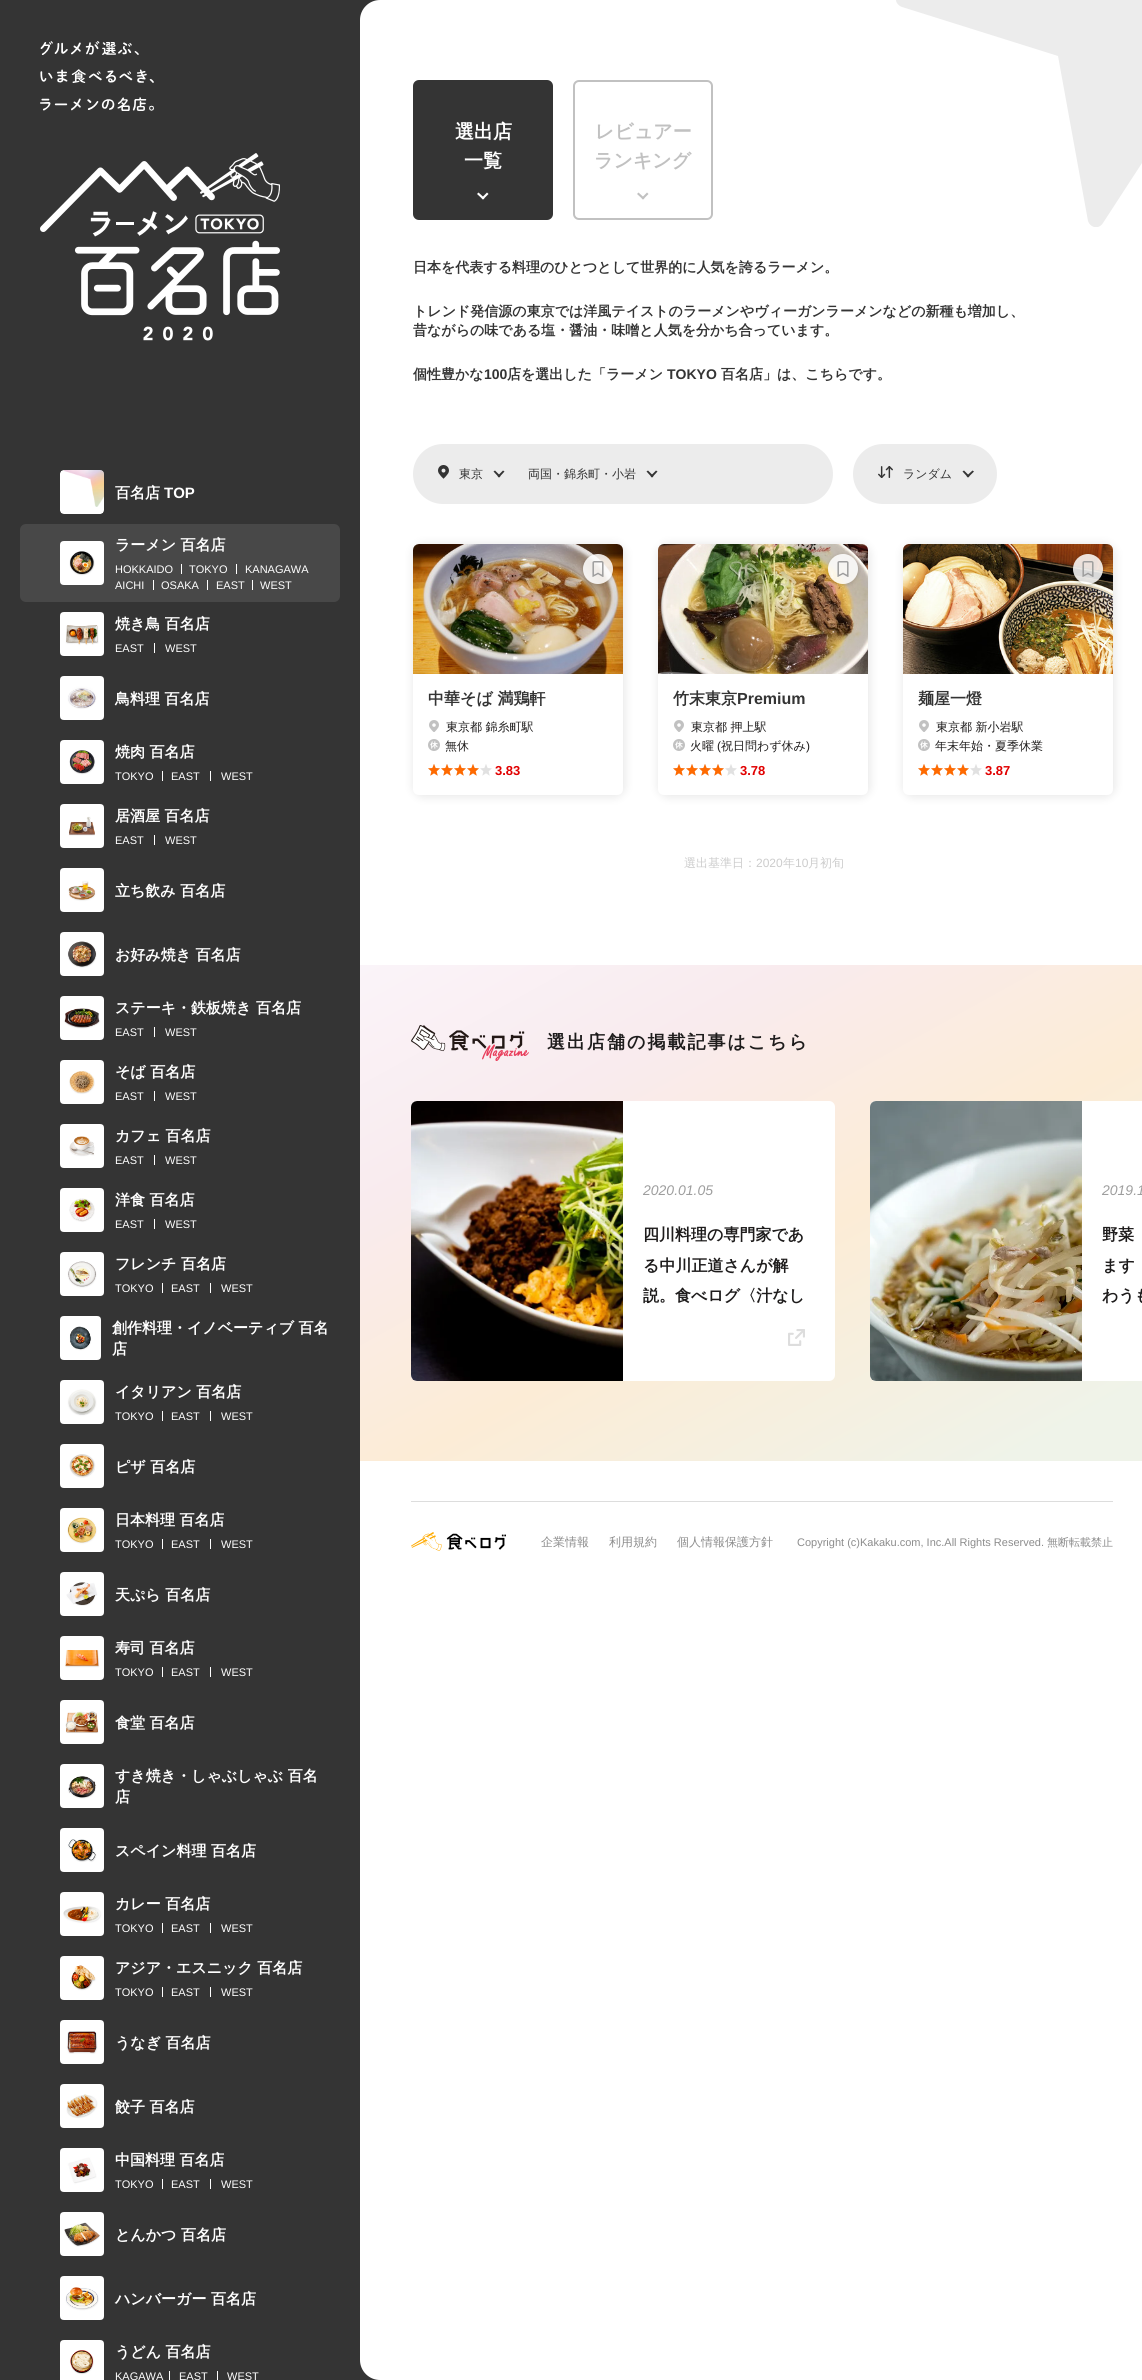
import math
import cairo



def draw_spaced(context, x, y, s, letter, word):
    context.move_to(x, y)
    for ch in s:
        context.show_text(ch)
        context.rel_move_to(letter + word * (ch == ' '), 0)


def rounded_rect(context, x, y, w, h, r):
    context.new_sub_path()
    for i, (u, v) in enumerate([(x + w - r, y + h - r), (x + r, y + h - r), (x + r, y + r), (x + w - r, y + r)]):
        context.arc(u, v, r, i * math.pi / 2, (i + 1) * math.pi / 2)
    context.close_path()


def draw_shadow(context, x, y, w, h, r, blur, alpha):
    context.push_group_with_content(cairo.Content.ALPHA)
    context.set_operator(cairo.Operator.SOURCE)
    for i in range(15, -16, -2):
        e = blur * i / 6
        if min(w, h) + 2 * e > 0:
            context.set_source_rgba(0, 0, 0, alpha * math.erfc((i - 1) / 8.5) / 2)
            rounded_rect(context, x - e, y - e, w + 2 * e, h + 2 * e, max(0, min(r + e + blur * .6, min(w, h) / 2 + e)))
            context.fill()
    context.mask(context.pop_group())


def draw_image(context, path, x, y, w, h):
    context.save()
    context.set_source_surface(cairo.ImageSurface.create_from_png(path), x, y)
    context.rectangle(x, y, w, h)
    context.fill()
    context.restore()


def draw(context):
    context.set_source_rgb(1, 1, 1)
    context.paint()
    context.save()
    context.rectangle(896, 0, 246, 227)
    context.clip()
    context.set_source_rgb(236 / 255, 236 / 255, 236 / 255)
    context.new_path()
    context.move_to(902, 7)
    context.line_to(1058, 56)
    context.line_to(1088, 221)
    context.curve_to(1089, 224, 1091, 226, 1094, 227)
    context.curve_to(1098, 228, 1101, 226, 1103, 223)
    context.line_to(1142, 163)
    context.line_to(1142, 0)
    context.line_to(896, 0)
    context.curve_to(896, 3, 899, 6, 902, 7)
    context.close_path()
    context.fill()
    context.restore()
    context.set_source_rgb(52 / 255, 52 / 255, 52 / 255)
    context.rectangle(0, 0, 360, 2380)
    context.fill()
    draw_image(context, "images/1.png", 40, 41, 114, 70)
    draw_image(context, "images/2.png", 40, 153, 240, 188)
    draw_image(context, "images/3.png", 60, 470, 44, 44)
    context.set_source_rgb(72 / 255, 72 / 255, 72 / 255)
    rounded_rect(context, 20, 524, 320, 78, 6)
    context.fill()
    draw_image(context, "images/4.png", 60, 541, 44, 44)
    context.set_source_rgb(1, 1, 1)
    context.rectangle(236, 564, 1, 10)
    context.fill()
    context.rectangle(181, 564, 1, 10)
    context.fill()
    context.rectangle(153, 580, 1, 10)
    context.fill()
    context.rectangle(207, 580, 1, 10)
    context.fill()
    context.rectangle(252, 580, 1, 10)
    context.fill()
    draw_image(context, "images/5.png", 60, 612, 44, 44)
    context.rectangle(154, 643, 1, 10)
    context.fill()
    draw_image(context, "images/6.png", 60, 676, 44, 44)
    draw_image(context, "images/7.png", 60, 740, 44, 44)
    context.rectangle(210, 771, 1, 10)
    context.fill()
    context.rectangle(162, 771, 1, 10)
    context.fill()
    draw_image(context, "images/8.png", 60, 804, 44, 44)
    context.rectangle(154, 835, 1, 10)
    context.fill()
    draw_image(context, "images/9.png", 60, 868, 44, 44)
    draw_image(context, "images/10.png", 60, 932, 44, 44)
    draw_image(context, "images/11.png", 60, 996, 44, 44)
    context.rectangle(154, 1027, 1, 10)
    context.fill()
    draw_image(context, "images/12.png", 60, 1060, 44, 44)
    context.rectangle(154, 1091, 1, 10)
    context.fill()
    draw_image(context, "images/13.png", 60, 1124, 44, 44)
    context.rectangle(154, 1155, 1, 10)
    context.fill()
    draw_image(context, "images/14.png", 60, 1188, 44, 44)
    context.rectangle(154, 1219, 1, 10)
    context.fill()
    draw_image(context, "images/15.png", 60, 1252, 44, 44)
    context.rectangle(210, 1283, 1, 10)
    context.fill()
    context.rectangle(162, 1283, 1, 10)
    context.fill()
    draw_image(context, "images/16.png", 60, 1316, 41, 44)
    draw_image(context, "images/17.png", 60, 1380, 44, 44)
    context.rectangle(210, 1411, 1, 10)
    context.fill()
    context.rectangle(162, 1411, 1, 10)
    context.fill()
    draw_image(context, "images/18.png", 60, 1444, 44, 44)
    draw_image(context, "images/19.png", 60, 1508, 44, 44)
    context.rectangle(210, 1539, 1, 10)
    context.fill()
    context.rectangle(162, 1539, 1, 10)
    context.fill()
    draw_image(context, "images/20.png", 60, 1572, 44, 44)
    draw_image(context, "images/21.png", 60, 1636, 44, 44)
    context.rectangle(210, 1667, 1, 10)
    context.fill()
    context.rectangle(162, 1667, 1, 10)
    context.fill()
    draw_image(context, "images/22.png", 60, 1700, 44, 44)
    draw_image(context, "images/23.png", 60, 1764, 44, 44)
    draw_image(context, "images/24.png", 60, 1828, 44, 44)
    draw_image(context, "images/25.png", 60, 1892, 44, 44)
    context.rectangle(210, 1923, 1, 10)
    context.fill()
    context.rectangle(162, 1923, 1, 10)
    context.fill()
    draw_image(context, "images/26.png", 60, 1956, 44, 44)
    context.rectangle(210, 1987, 1, 10)
    context.fill()
    context.rectangle(162, 1987, 1, 10)
    context.fill()
    draw_image(context, "images/27.png", 60, 2020, 44, 44)
    draw_image(context, "images/28.png", 60, 2084, 44, 44)
    draw_image(context, "images/29.png", 60, 2148, 44, 44)
    context.rectangle(210, 2179, 1, 10)
    context.fill()
    context.rectangle(162, 2179, 1, 10)
    context.fill()
    draw_image(context, "images/30.png", 60, 2212, 44, 44)
    draw_image(context, "images/31.png", 60, 2276, 44, 44)
    draw_image(context, "images/32.png", 60, 2340, 44, 40)
    context.rectangle(217, 2371, 1, 9)
    context.fill()
    context.rectangle(169, 2371, 1, 9)
    context.fill()
    context.set_source_rgb(52 / 255, 52 / 255, 52 / 255)
    context.rectangle(360, 0, 20, 20)
    context.fill()
    context.set_source_rgb(1, 1, 1)
    context.new_path()
    context.move_to(380, 0)
    context.line_to(380, 20)
    context.line_to(360, 20)
    context.curve_to(360, 9, 369, 0, 380, 0)
    context.close_path()
    context.fill()
    context.set_source_rgb(52 / 255, 52 / 255, 52 / 255)
    rounded_rect(context, 414, 81, 138, 138, 5)
    context.fill_preserve()
    context.stroke()
    context.set_source_rgb(1, 1, 1)
    context.new_path()
    context.move_to(488.5, 194)
    context.line_to(483, 199.5)
    context.line_to(481.5, 198)
    context.line_to(487, 192.5)
    context.close_path()
    context.fill()
    context.new_path()
    context.move_to(484.5, 198)
    context.line_to(483, 199.5)
    context.line_to(477, 194)
    context.line_to(478.5, 192.5)
    context.close_path()
    context.fill()
    rounded_rect(context, 574, 81, 138, 138, 5)
    context.set_source_rgb(193 / 255, 193 / 255, 193 / 255)
    context.stroke()
    context.new_path()
    context.move_to(648.5, 194)
    context.line_to(643, 199.5)
    context.line_to(641.5, 198)
    context.line_to(647, 192.5)
    context.close_path()
    context.fill()
    context.new_path()
    context.move_to(644.5, 198)
    context.line_to(643, 199.5)
    context.line_to(637, 194)
    context.line_to(638.5, 192.5)
    context.close_path()
    context.fill()
    context.set_source_rgb(236 / 255, 236 / 255, 236 / 255)
    rounded_rect(context, 413, 444, 420, 60, 30)
    context.fill()
    draw_image(context, "images/33.png", 438, 465, 11, 14)
    context.set_source_rgb(52 / 255, 52 / 255, 52 / 255)
    context.new_path()
    context.move_to(504.5, 471.5)
    context.line_to(499, 477.5)
    context.line_to(497.5, 476)
    context.line_to(503, 470.5)
    context.close_path()
    context.fill()
    context.new_path()
    context.move_to(500.5, 476)
    context.line_to(499, 477.5)
    context.line_to(493.5, 471.5)
    context.line_to(495, 470.5)
    context.close_path()
    context.fill()
    context.new_path()
    context.move_to(657.5, 471.5)
    context.line_to(652, 477.5)
    context.line_to(650.5, 476)
    context.line_to(656, 470.5)
    context.close_path()
    context.fill()
    context.new_path()
    context.move_to(653.5, 476)
    context.line_to(652, 477.5)
    context.line_to(646.5, 471.5)
    context.line_to(648, 470.5)
    context.close_path()
    context.fill()
    context.set_source_rgb(236 / 255, 236 / 255, 236 / 255)
    rounded_rect(context, 853, 444, 144, 60, 30)
    context.fill()
    draw_image(context, "images/34.png", 878, 466, 15, 12)
    context.set_source_rgb(52 / 255, 52 / 255, 52 / 255)
    context.new_path()
    context.move_to(974, 471.5)
    context.line_to(968, 477.5)
    context.line_to(966.5, 476)
    context.line_to(972.5, 470.5)
    context.close_path()
    context.fill()
    context.new_path()
    context.move_to(969.5, 476)
    context.line_to(968, 477.5)
    context.line_to(962.5, 471.5)
    context.line_to(964, 470.5)
    context.close_path()
    context.fill()
    context.set_source_rgb(216 / 255, 216 / 255, 216 / 255)
    draw_shadow(context, 412, 543, 214, 255, 12, 4, 0.5)
    draw_image(context, "images/36.png", 413, 544, 210, 130)
    context.save()
    context.set_fill_rule(cairo.FillRule.EVEN_ODD)
    context.new_path()
    context.move_to(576, 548)
    context.line_to(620, 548)
    context.line_to(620, 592)
    context.line_to(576, 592)
    context.close_path()
    context.move_to(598, 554)
    context.curve_to(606.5, 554, 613, 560.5, 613, 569)
    context.curve_to(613, 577.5, 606.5, 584, 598, 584)
    context.curve_to(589.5, 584, 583, 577.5, 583, 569)
    context.curve_to(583, 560.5, 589.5, 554, 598, 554)
    context.close_path()
    context.clip()
    context.set_source_rgb(0, 0, 0)
    draw_shadow(context, 583, 555, 30, 30, 15, 2, 0.16)
    context.restore()
    context.set_source_rgba(1, 1, 1, 0.85)
    context.arc(598, 569, 15, 0, 2 * math.pi)
    context.fill()
    draw_image(context, "images/35.png", 592, 561, 12, 16)
    context.set_source_rgb(1, 1, 1)
    context.new_path()
    context.move_to(413, 674)
    context.line_to(623, 674)
    context.line_to(623, 789)
    context.curve_to(623, 792.5, 620.5, 795, 617, 795)
    context.line_to(419, 795)
    context.curve_to(415.5, 795, 413, 792.5, 413, 789)
    context.close_path()
    context.fill()
    draw_image(context, "images/37.png", 429, 720, 10, 12)
    draw_image(context, "images/38.png", 428, 739, 12, 12)
    draw_image(context, "images/39.png", 428, 764, 64, 12)
    draw_image(context, "images/40.png", 428, 764, 51, 12)
    context.set_source_rgb(216 / 255, 216 / 255, 216 / 255)
    draw_shadow(context, 657, 543, 214, 255, 12, 4, 0.5)
    draw_image(context, "images/42.png", 658, 544, 210, 130)
    context.save()
    context.set_fill_rule(cairo.FillRule.EVEN_ODD)
    context.new_path()
    context.move_to(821, 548)
    context.line_to(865, 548)
    context.line_to(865, 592)
    context.line_to(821, 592)
    context.close_path()
    context.move_to(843, 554)
    context.curve_to(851.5, 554, 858, 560.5, 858, 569)
    context.curve_to(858, 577.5, 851.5, 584, 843, 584)
    context.curve_to(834.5, 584, 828, 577.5, 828, 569)
    context.curve_to(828, 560.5, 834.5, 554, 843, 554)
    context.close_path()
    context.clip()
    context.set_source_rgb(0, 0, 0)
    draw_shadow(context, 828, 555, 30, 30, 15, 2, 0.16)
    context.restore()
    context.set_source_rgba(1, 1, 1, 0.85)
    context.arc(843, 569, 15, 0, 2 * math.pi)
    context.fill()
    draw_image(context, "images/41.png", 837, 561, 12, 16)
    context.set_source_rgb(1, 1, 1)
    context.new_path()
    context.move_to(658, 674)
    context.line_to(868, 674)
    context.line_to(868, 789)
    context.curve_to(868, 792.5, 865.5, 795, 862, 795)
    context.line_to(664, 795)
    context.curve_to(660.5, 795, 658, 792.5, 658, 789)
    context.close_path()
    context.fill()
    draw_image(context, "images/37.png", 674, 720, 10, 12)
    draw_image(context, "images/38.png", 673, 739, 12, 12)
    draw_image(context, "images/39.png", 673, 764, 64, 12)
    draw_image(context, "images/40.png", 673, 764, 51, 12)
    context.set_source_rgb(216 / 255, 216 / 255, 216 / 255)
    draw_shadow(context, 902, 543, 214, 255, 12, 4, 0.5)
    draw_image(context, "images/44.png", 903, 544, 210, 130)
    context.save()
    context.set_fill_rule(cairo.FillRule.EVEN_ODD)
    context.new_path()
    context.move_to(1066, 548)
    context.line_to(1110, 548)
    context.line_to(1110, 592)
    context.line_to(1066, 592)
    context.close_path()
    context.move_to(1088, 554)
    context.curve_to(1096.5, 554, 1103, 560.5, 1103, 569)
    context.curve_to(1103, 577.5, 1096.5, 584, 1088, 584)
    context.curve_to(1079.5, 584, 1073, 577.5, 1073, 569)
    context.curve_to(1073, 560.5, 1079.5, 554, 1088, 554)
    context.close_path()
    context.clip()
    context.set_source_rgb(0, 0, 0)
    draw_shadow(context, 1073, 555, 30, 30, 15, 2, 0.16)
    context.restore()
    context.set_source_rgba(1, 1, 1, 0.85)
    context.arc(1088, 569, 15, 0, 2 * math.pi)
    context.fill()
    draw_image(context, "images/43.png", 1082, 561, 12, 16)
    context.set_source_rgb(1, 1, 1)
    context.new_path()
    context.move_to(903, 674)
    context.line_to(1113, 674)
    context.line_to(1113, 789)
    context.curve_to(1113, 792.5, 1110.5, 795, 1107, 795)
    context.line_to(909, 795)
    context.curve_to(905.5, 795, 903, 792.5, 903, 789)
    context.close_path()
    context.fill()
    draw_image(context, "images/37.png", 919, 720, 10, 12)
    draw_image(context, "images/38.png", 918, 739, 12, 12)
    draw_image(context, "images/39.png", 918, 764, 64, 12)
    draw_image(context, "images/40.png", 918, 764, 51, 12)
    gradient = cairo.LinearGradient(554, 857, 948, 1569)
    gradient.add_color_stop_rgba(0, 250 / 255, 244 / 255, 249 / 255, 1)
    gradient.add_color_stop_rgba(0.26, 249 / 255, 235 / 255, 238 / 255, 1)
    gradient.add_color_stop_rgba(0.56, 252 / 255, 236 / 255, 214 / 255, 1)
    gradient.add_color_stop_rgba(0.92, 239 / 255, 243 / 255, 233 / 255, 1)
    context.set_source(gradient)
    context.rectangle(360, 965, 782, 496)
    context.fill()
    draw_image(context, "images/45.png", 411, 1025, 118, 36)
    context.set_source_rgb(1, 1, 1)
    rounded_rect(context, 411, 1101, 424, 280, 6)
    context.fill()
    draw_image(context, "images/46.png", 411, 1101, 212, 280)
    draw_image(context, "images/47.png", 788, 1329, 17, 17)
    context.new_path()
    context.move_to(876, 1101)
    context.line_to(1142, 1101)
    context.line_to(1142, 1381)
    context.line_to(876, 1381)
    context.curve_to(872.5, 1381, 870, 1378.5, 870, 1375)
    context.line_to(870, 1107)
    context.curve_to(870, 1103.5, 872.5, 1101, 876, 1101)
    context.close_path()
    context.fill()
    draw_image(context, "images/48.png", 870, 1101, 212, 280)
    context.set_source_rgb(221 / 255, 221 / 255, 221 / 255)
    context.rectangle(411, 1501, 702, 1)
    context.fill()
    draw_image(context, "images/49.png", 411, 1532, 95, 19)
    context.set_source_rgb(52 / 255, 52 / 255, 52 / 255)
    context.rectangle(360, 2360, 20, 20)
    context.fill()
    context.set_source_rgb(1, 1, 1)
    context.new_path()
    context.move_to(360, 2360)
    context.line_to(380, 2360)
    context.line_to(380, 2380)
    context.curve_to(369, 2380, 360, 2371, 360, 2360)
    context.close_path()
    context.fill()
    context.select_font_face("WenQuanYi Zen Hei", cairo.FontSlant.NORMAL, cairo.FontWeight.BOLD)
    context.set_font_size(15)
    context.move_to(115, 498)
    context.show_text("百名店")
    context.select_font_face("Liberation Sans", cairo.FontSlant.NORMAL, cairo.FontWeight.BOLD)
    context.move_to(164, 498)
    context.show_text("TOP")
    context.select_font_face("WenQuanYi Zen Hei", cairo.FontSlant.NORMAL, cairo.FontWeight.BOLD)
    context.move_to(115, 550)
    context.show_text("ラーメン 百名店")
    context.select_font_face("Liberation Sans")
    context.set_font_size(11)
    context.move_to(115, 573)
    context.show_text("HOKKAIDO")
    context.move_to(189, 573)
    context.show_text("TOKYO")
    context.move_to(245, 573)
    context.show_text("KANAGAWA")
    context.move_to(115, 589)
    context.show_text("AICHI")
    context.move_to(161, 589)
    context.show_text("OSAKA")
    context.move_to(216, 589)
    context.show_text("EAST")
    context.move_to(260, 589)
    context.show_text("WEST")
    context.select_font_face("WenQuanYi Zen Hei", cairo.FontSlant.NORMAL, cairo.FontWeight.BOLD)
    context.set_font_size(15)
    context.move_to(115, 629)
    context.show_text("焼き鳥 百名店")
    context.select_font_face("Liberation Sans")
    context.set_font_size(11)
    context.move_to(115, 652)
    context.show_text("EAST")
    context.move_to(165, 652)
    context.show_text("WEST")
    context.select_font_face("WenQuanYi Zen Hei", cairo.FontSlant.NORMAL, cairo.FontWeight.BOLD)
    context.set_font_size(15)
    context.move_to(115, 704)
    context.show_text("鳥料理 百名店")
    context.move_to(115, 757)
    context.show_text("焼肉 百名店")
    context.select_font_face("Liberation Sans")
    context.set_font_size(11)
    context.move_to(115, 780)
    context.show_text("TOKYO")
    context.move_to(171, 780)
    context.show_text("EAST")
    context.move_to(221, 780)
    context.show_text("WEST")
    context.select_font_face("WenQuanYi Zen Hei", cairo.FontSlant.NORMAL, cairo.FontWeight.BOLD)
    context.set_font_size(15)
    context.move_to(115, 821)
    context.show_text("居酒屋 百名店")
    context.select_font_face("Liberation Sans")
    context.set_font_size(11)
    context.move_to(115, 844)
    context.show_text("EAST")
    context.move_to(165, 844)
    context.show_text("WEST")
    context.select_font_face("WenQuanYi Zen Hei", cairo.FontSlant.NORMAL, cairo.FontWeight.BOLD)
    context.set_font_size(15)
    context.move_to(115, 896)
    context.show_text("立ち飲み 百名店")
    context.move_to(115, 960)
    context.show_text("お好み焼き 百名店")
    context.move_to(115, 1013)
    context.show_text("ステーキ・鉄板焼き 百名店")
    context.select_font_face("Liberation Sans")
    context.set_font_size(11)
    context.move_to(115, 1036)
    context.show_text("EAST")
    context.move_to(165, 1036)
    context.show_text("WEST")
    context.select_font_face("WenQuanYi Zen Hei", cairo.FontSlant.NORMAL, cairo.FontWeight.BOLD)
    context.set_font_size(15)
    context.move_to(115, 1077)
    context.show_text("そば 百名店")
    context.select_font_face("Liberation Sans")
    context.set_font_size(11)
    context.move_to(115, 1100)
    context.show_text("EAST")
    context.move_to(165, 1100)
    context.show_text("WEST")
    context.select_font_face("WenQuanYi Zen Hei", cairo.FontSlant.NORMAL, cairo.FontWeight.BOLD)
    context.set_font_size(15)
    context.move_to(115, 1141)
    context.show_text("カフェ 百名店")
    context.select_font_face("Liberation Sans")
    context.set_font_size(11)
    context.move_to(115, 1164)
    context.show_text("EAST")
    context.move_to(165, 1164)
    context.show_text("WEST")
    context.select_font_face("WenQuanYi Zen Hei", cairo.FontSlant.NORMAL, cairo.FontWeight.BOLD)
    context.set_font_size(15)
    context.move_to(115, 1205)
    context.show_text("洋食 百名店")
    context.select_font_face("Liberation Sans")
    context.set_font_size(11)
    context.move_to(115, 1228)
    context.show_text("EAST")
    context.move_to(165, 1228)
    context.show_text("WEST")
    context.select_font_face("WenQuanYi Zen Hei", cairo.FontSlant.NORMAL, cairo.FontWeight.BOLD)
    context.set_font_size(15)
    context.move_to(115, 1269)
    context.show_text("フレンチ 百名店")
    context.select_font_face("Liberation Sans")
    context.set_font_size(11)
    context.move_to(115, 1292)
    context.show_text("TOKYO")
    context.move_to(171, 1292)
    context.show_text("EAST")
    context.move_to(221, 1292)
    context.show_text("WEST")
    context.select_font_face("WenQuanYi Zen Hei", cairo.FontSlant.NORMAL, cairo.FontWeight.BOLD)
    context.set_font_size(15)
    context.move_to(112, 1333)
    context.show_text("創作料理・イノベーティブ 百名")
    context.move_to(112, 1354)
    context.show_text("店")
    context.move_to(115, 1397)
    context.show_text("イタリアン 百名店")
    context.select_font_face("Liberation Sans")
    context.set_font_size(11)
    context.move_to(115, 1420)
    context.show_text("TOKYO")
    context.move_to(171, 1420)
    context.show_text("EAST")
    context.move_to(221, 1420)
    context.show_text("WEST")
    context.select_font_face("WenQuanYi Zen Hei", cairo.FontSlant.NORMAL, cairo.FontWeight.BOLD)
    context.set_font_size(15)
    context.move_to(115, 1472)
    context.show_text("ピザ 百名店")
    context.move_to(115, 1525)
    context.show_text("日本料理 百名店")
    context.select_font_face("Liberation Sans")
    context.set_font_size(11)
    context.move_to(115, 1548)
    context.show_text("TOKYO")
    context.move_to(171, 1548)
    context.show_text("EAST")
    context.move_to(221, 1548)
    context.show_text("WEST")
    context.select_font_face("WenQuanYi Zen Hei", cairo.FontSlant.NORMAL, cairo.FontWeight.BOLD)
    context.set_font_size(15)
    context.move_to(115, 1600)
    context.show_text("天ぷら 百名店")
    context.move_to(115, 1653)
    context.show_text("寿司 百名店")
    context.select_font_face("Liberation Sans")
    context.set_font_size(11)
    context.move_to(115, 1676)
    context.show_text("TOKYO")
    context.move_to(171, 1676)
    context.show_text("EAST")
    context.move_to(221, 1676)
    context.show_text("WEST")
    context.select_font_face("WenQuanYi Zen Hei", cairo.FontSlant.NORMAL, cairo.FontWeight.BOLD)
    context.set_font_size(15)
    context.move_to(115, 1728)
    context.show_text("食堂 百名店")
    context.move_to(115, 1781)
    context.show_text("すき焼き・しゃぶしゃぶ 百名")
    context.move_to(115, 1802)
    context.show_text("店")
    context.move_to(115, 1856)
    context.show_text("スペイン料理 百名店")
    context.move_to(115, 1909)
    context.show_text("カレー 百名店")
    context.select_font_face("Liberation Sans")
    context.set_font_size(11)
    context.move_to(115, 1932)
    context.show_text("TOKYO")
    context.move_to(171, 1932)
    context.show_text("EAST")
    context.move_to(221, 1932)
    context.show_text("WEST")
    context.select_font_face("WenQuanYi Zen Hei", cairo.FontSlant.NORMAL, cairo.FontWeight.BOLD)
    context.set_font_size(15)
    context.move_to(115, 1973)
    context.show_text("アジア・エスニック 百名店")
    context.select_font_face("Liberation Sans")
    context.set_font_size(11)
    context.move_to(115, 1996)
    context.show_text("TOKYO")
    context.move_to(171, 1996)
    context.show_text("EAST")
    context.move_to(221, 1996)
    context.show_text("WEST")
    context.select_font_face("WenQuanYi Zen Hei", cairo.FontSlant.NORMAL, cairo.FontWeight.BOLD)
    context.set_font_size(15)
    context.move_to(115, 2048)
    context.show_text("うなぎ 百名店")
    context.move_to(115, 2112)
    context.show_text("餃子 百名店")
    context.move_to(115, 2165)
    context.show_text("中国料理 百名店")
    context.select_font_face("Liberation Sans")
    context.set_font_size(11)
    context.move_to(115, 2188)
    context.show_text("TOKYO")
    context.move_to(171, 2188)
    context.show_text("EAST")
    context.move_to(221, 2188)
    context.show_text("WEST")
    context.select_font_face("WenQuanYi Zen Hei", cairo.FontSlant.NORMAL, cairo.FontWeight.BOLD)
    context.set_font_size(15)
    context.move_to(115, 2240)
    context.show_text("とんかつ 百名店")
    context.move_to(115, 2304)
    context.show_text("ハンバーガー 百名店")
    context.move_to(115, 2357)
    context.show_text("うどん 百名店")
    context.select_font_face("Liberation Sans")
    context.set_font_size(11)
    context.move_to(115, 2380)
    context.show_text("KAGAWA")
    context.move_to(179, 2380)
    context.show_text("EAST")
    context.move_to(227, 2380)
    context.show_text("WEST")
    context.select_font_face("WenQuanYi Zen Hei", cairo.FontSlant.NORMAL, cairo.FontWeight.BOLD)
    context.set_font_size(19)
    context.move_to(455, 138)
    context.show_text("選出店")
    context.move_to(464, 167)
    context.show_text("一覧")
    context.set_source_rgb(193 / 255, 193 / 255, 193 / 255)
    context.move_to(595, 138)
    context.show_text("レビュアー")
    context.move_to(594, 167)
    context.show_text("ランキング")
    context.set_font_size(14)
    context.set_source_rgb(52 / 255, 52 / 255, 52 / 255)
    context.move_to(413, 272)
    context.show_text("日本を代表する料理のひとつとして世界的に人気を誇るラーメン。")
    context.move_to(413, 316)
    context.show_text("トレンド発信源の東京では洋風テイストのラーメンやヴィーガンラーメンなどの新種も増加し、")
    context.move_to(413, 335)
    context.show_text("昔ながらの味である塩・醤油・味噌と人気を分かち合っています。")
    context.move_to(413, 379)
    context.show_text("個性豊かな")
    context.select_font_face("Liberation Sans", cairo.FontSlant.NORMAL, cairo.FontWeight.BOLD)
    context.move_to(484, 379)
    context.show_text("100")
    context.select_font_face("WenQuanYi Zen Hei", cairo.FontSlant.NORMAL, cairo.FontWeight.BOLD)
    context.move_to(507, 379)
    context.show_text("店を選出した「ラーメン")
    context.select_font_face("Liberation Sans", cairo.FontSlant.NORMAL, cairo.FontWeight.BOLD)
    context.move_to(667, 379)
    context.show_text("TOKYO")
    context.select_font_face("WenQuanYi Zen Hei", cairo.FontSlant.NORMAL, cairo.FontWeight.BOLD)
    context.move_to(721, 379)
    context.show_text("百名店」は、こちらです。")
    context.select_font_face("WenQuanYi Zen Hei Medium")
    context.set_font_size(12)
    context.move_to(459, 478)
    context.show_text("東京")
    context.move_to(528, 478)
    context.show_text("両国・錦糸町・小岩")
    context.move_to(903, 478)
    context.show_text("ランダム")
    context.select_font_face("WenQuanYi Zen Hei", cairo.FontSlant.NORMAL, cairo.FontWeight.BOLD)
    context.set_font_size(16)
    context.move_to(428, 704)
    context.show_text("中華そば 満鶏軒")
    context.select_font_face("WenQuanYi Zen Hei Medium")
    context.set_font_size(12)
    context.set_source_rgb(30 / 255, 28 / 255, 28 / 255)
    context.move_to(446, 731)
    context.show_text("東京都 錦糸町駅")
    context.move_to(445, 750)
    context.show_text("無休")
    context.select_font_face("Liberation Sans", cairo.FontSlant.NORMAL, cairo.FontWeight.BOLD)
    context.set_font_size(13)
    context.set_source_rgb(225 / 255, 0, 0)
    context.move_to(495, 775)
    context.show_text("3.83")
    context.select_font_face("WenQuanYi Zen Hei", cairo.FontSlant.NORMAL, cairo.FontWeight.BOLD)
    context.set_font_size(16)
    context.set_source_rgb(52 / 255, 52 / 255, 52 / 255)
    context.move_to(673, 704)
    context.show_text("竹末東京")
    context.select_font_face("Liberation Sans", cairo.FontSlant.NORMAL, cairo.FontWeight.BOLD)
    context.move_to(737, 704)
    context.show_text("Premium")
    context.select_font_face("WenQuanYi Zen Hei Medium")
    context.set_font_size(12)
    context.set_source_rgb(30 / 255, 28 / 255, 28 / 255)
    context.move_to(691, 731)
    context.show_text("東京都 押上駅")
    context.move_to(690, 750)
    context.show_text("火曜")
    context.select_font_face("Liberation Sans")
    context.move_to(717, 750)
    context.show_text("(")
    context.select_font_face("WenQuanYi Zen Hei Medium")
    context.move_to(721, 750)
    context.show_text("祝日問わず休み")
    context.select_font_face("Liberation Sans")
    context.move_to(806, 750)
    context.show_text(")")
    context.select_font_face("Liberation Sans", cairo.FontSlant.NORMAL, cairo.FontWeight.BOLD)
    context.set_font_size(13)
    context.set_source_rgb(225 / 255, 0, 0)
    context.move_to(740, 775)
    context.show_text("3.78")
    context.select_font_face("WenQuanYi Zen Hei", cairo.FontSlant.NORMAL, cairo.FontWeight.BOLD)
    context.set_font_size(16)
    context.set_source_rgb(52 / 255, 52 / 255, 52 / 255)
    context.move_to(918, 704)
    context.show_text("麺屋一燈")
    context.select_font_face("WenQuanYi Zen Hei Medium")
    context.set_font_size(12)
    context.set_source_rgb(30 / 255, 28 / 255, 28 / 255)
    context.move_to(936, 731)
    context.show_text("東京都 新小岩駅")
    context.move_to(935, 750)
    context.show_text("年末年始・夏季休業")
    context.select_font_face("Liberation Sans", cairo.FontSlant.NORMAL, cairo.FontWeight.BOLD)
    context.set_font_size(13)
    context.set_source_rgb(225 / 255, 0, 0)
    context.move_to(985, 775)
    context.show_text("3.87")
    context.select_font_face("WenQuanYi Zen Hei Medium")
    context.set_font_size(12)
    context.set_source_rgb(204 / 255, 204 / 255, 204 / 255)
    context.move_to(684, 867)
    context.show_text("選出基準日：")
    context.select_font_face("Liberation Sans")
    context.move_to(756, 867)
    context.show_text("2020")
    context.select_font_face("WenQuanYi Zen Hei Medium")
    context.move_to(783, 867)
    context.show_text("年")
    context.select_font_face("Liberation Sans")
    context.move_to(795, 867)
    context.show_text("10")
    context.select_font_face("WenQuanYi Zen Hei Medium")
    context.move_to(808, 867)
    context.show_text("月初旬")
    context.select_font_face("WenQuanYi Zen Hei", cairo.FontSlant.NORMAL, cairo.FontWeight.BOLD)
    context.set_font_size(18)
    context.set_source_rgb(30 / 255, 28 / 255, 28 / 255)
    draw_spaced(context, 547, 1048, "選出店舗の掲載記事はこちら", 2, 0)
    context.select_font_face("Liberation Sans", cairo.FontSlant.ITALIC)
    context.set_font_size(14)
    context.set_source_rgb(158 / 255, 158 / 255, 158 / 255)
    context.move_to(643, 1195)
    context.show_text("2020.01.05")
    context.select_font_face("WenQuanYi Zen Hei", cairo.FontSlant.NORMAL, cairo.FontWeight.BOLD)
    context.set_font_size(16)
    context.set_source_rgb(30 / 255, 28 / 255, 28 / 255)
    context.move_to(643, 1240)
    context.show_text("四川料理の専門家であ")
    context.move_to(643, 1271)
    context.show_text("る中川正道さんが解")
    context.move_to(643, 1301)
    context.show_text("説。食べログ〈汁なし")
    context.select_font_face("Liberation Sans", cairo.FontSlant.ITALIC)
    context.set_font_size(14)
    context.set_source_rgb(158 / 255, 158 / 255, 158 / 255)
    context.move_to(1102, 1195)
    context.show_text("2019.1")
    context.select_font_face("WenQuanYi Zen Hei", cairo.FontSlant.NORMAL, cairo.FontWeight.BOLD)
    context.set_font_size(16)
    context.set_source_rgb(30 / 255, 28 / 255, 28 / 255)
    context.move_to(1102, 1240)
    context.show_text("野菜")
    context.move_to(1102, 1271)
    context.show_text("ます")
    context.move_to(1102, 1301)
    context.show_text("わうも")
    context.select_font_face("WenQuanYi Zen Hei Medium")
    context.set_font_size(12)
    context.set_source_rgb(140 / 255, 140 / 255, 140 / 255)
    context.move_to(541, 1546)
    context.show_text("企業情報")
    context.move_to(609, 1546)
    context.show_text("利用規約")
    context.move_to(677, 1546)
    context.show_text("個人情報保護方針")
    context.select_font_face("Liberation Sans")
    context.set_font_size(11)
    context.move_to(797, 1546)
    context.show_text("Copyright (c)Kakaku.com, Inc.All Rights Reserved.")
    context.select_font_face("WenQuanYi Zen Hei Medium")
    context.move_to(1047, 1546)
    context.show_text("無断転載禁止")


surface = cairo.ImageSurface(cairo.Format.RGB24, 1142, 2380)
context = cairo.Context(surface)
options = cairo.FontOptions()
options.set_hint_metrics(cairo.HintMetrics.OFF)
options.set_hint_style(cairo.HintStyle.NONE)
context.set_font_options(options)
context.set_miter_limit(4)
draw(context)
surface.write_to_png("out.png")
